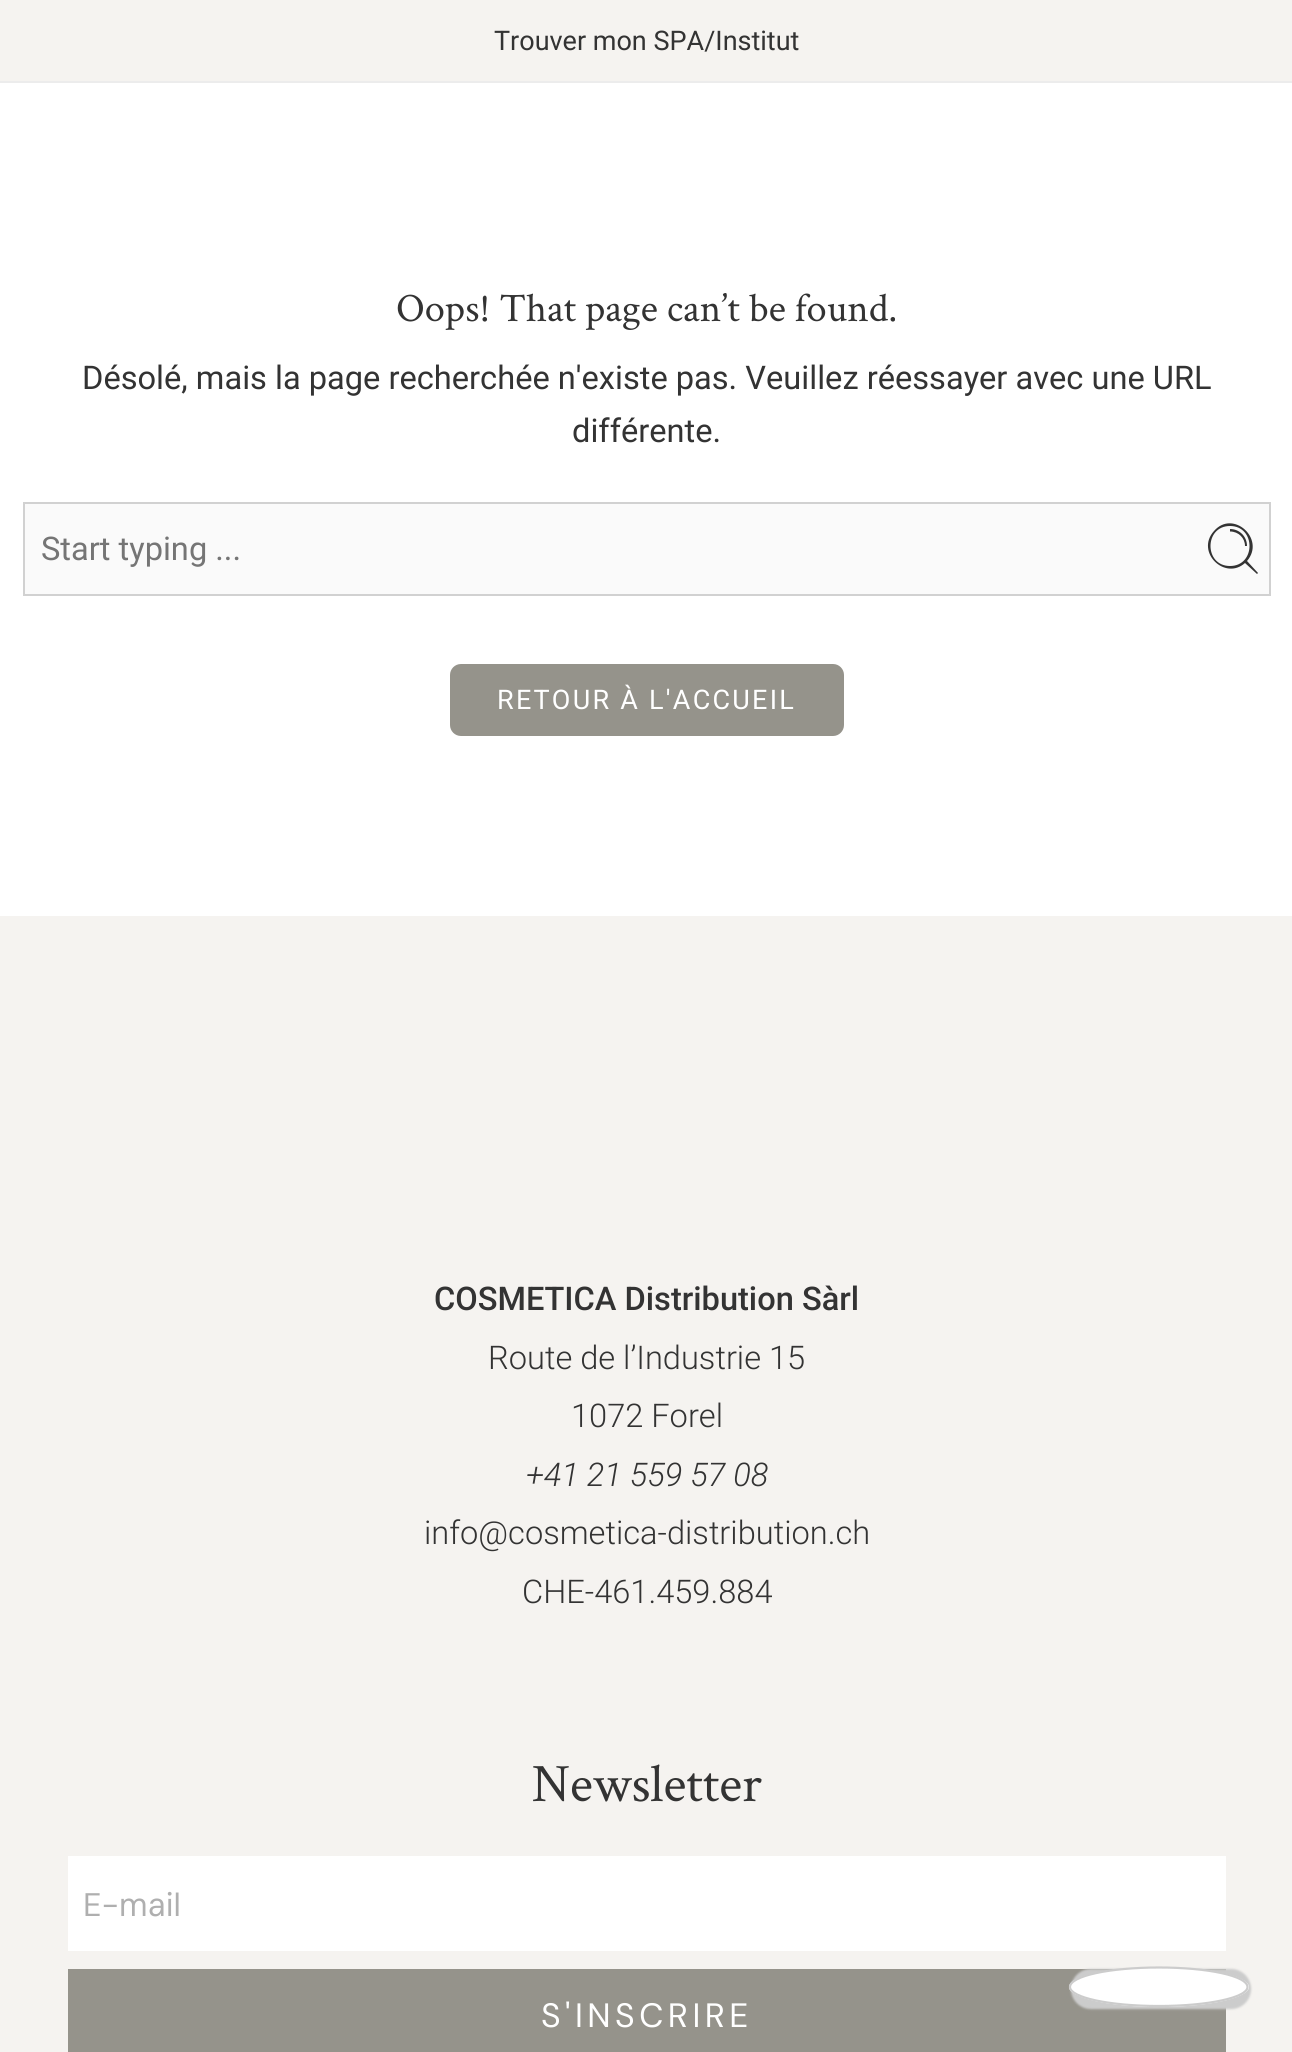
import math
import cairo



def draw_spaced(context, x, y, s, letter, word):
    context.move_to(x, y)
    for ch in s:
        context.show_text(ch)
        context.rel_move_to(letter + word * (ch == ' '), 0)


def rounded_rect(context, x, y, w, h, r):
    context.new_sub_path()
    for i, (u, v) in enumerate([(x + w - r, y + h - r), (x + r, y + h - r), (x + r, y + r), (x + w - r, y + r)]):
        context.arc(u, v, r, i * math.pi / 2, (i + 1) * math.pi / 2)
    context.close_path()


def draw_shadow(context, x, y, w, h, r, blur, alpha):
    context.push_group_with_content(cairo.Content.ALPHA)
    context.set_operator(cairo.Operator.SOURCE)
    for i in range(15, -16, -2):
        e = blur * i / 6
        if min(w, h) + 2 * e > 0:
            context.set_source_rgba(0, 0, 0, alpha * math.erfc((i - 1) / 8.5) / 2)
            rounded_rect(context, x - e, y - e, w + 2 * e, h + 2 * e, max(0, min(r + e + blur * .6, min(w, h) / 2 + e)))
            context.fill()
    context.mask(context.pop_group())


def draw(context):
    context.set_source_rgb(1, 1, 1)
    context.paint()
    context.set_source_rgb(245 / 255, 243 / 255, 240 / 255)
    context.rectangle(0, 0, 1292, 81)
    context.fill()
    context.set_source_rgb(236 / 255, 236 / 255, 236 / 255)
    context.rectangle(0, 81, 1292, 2)
    context.fill()
    context.set_source_rgb(250 / 255, 250 / 255, 250 / 255)
    context.rectangle(24, 503, 1246, 92)
    context.fill_preserve()
    context.set_source_rgb(209 / 255, 209 / 255, 209 / 255)
    context.stroke()
    context.set_source_rgb(51 / 255, 51 / 255, 51 / 255)
    context.new_path()
    context.move_to(1258, 573)
    context.line_to(1247, 561)
    context.curve_to(1266, 539, 1233, 509, 1214, 531)
    context.curve_to(1195, 552, 1225, 581, 1245, 563)
    context.line_to(1257, 574)
    context.close_path()
    context.move_to(1230, 566)
    context.curve_to(1204, 566, 1204, 526, 1230, 526)
    context.curve_to(1256, 526, 1256, 566, 1230, 566)
    context.close_path()
    context.fill()
    context.new_path()
    context.move_to(1230, 529)
    context.line_to(1230, 531.5)
    context.curve_to(1238.5, 531.5, 1245, 538, 1245, 546)
    context.line_to(1247, 546)
    context.curve_to(1247, 536.5, 1239.5, 529, 1230, 529)
    context.close_path()
    context.fill()
    context.set_source_rgb(149 / 255, 147 / 255, 139 / 255)
    rounded_rect(context, 451, 665, 392, 70, 10)
    context.fill_preserve()
    context.stroke()
    context.set_source_rgb(245 / 255, 243 / 255, 240 / 255)
    context.rectangle(0, 916, 1292, 1136)
    context.fill()
    context.set_source_rgb(149 / 255, 147 / 255, 139 / 255)
    context.rectangle(68, 1969, 1158, 83)
    context.fill()
    context.set_source_rgb(204 / 255, 204 / 255, 204 / 255)
    draw_shadow(context, 1071, 1969, 180, 40, 20, 1, 1)
    context.set_source_rgb(1, 1, 1)
    context.new_path()
    context.move_to(1159, 1967)
    context.curve_to(1208.5, 1967, 1249, 1976, 1249, 1987)
    context.curve_to(1249, 1998, 1208.5, 2007, 1159, 2007)
    context.curve_to(1109.5, 2007, 1069, 1998, 1069, 1987)
    context.curve_to(1069, 1976, 1109.5, 1967, 1159, 1967)
    context.close_path()
    context.fill()
    context.new_path()
    context.move_to(1159, 1967.5)
    context.curve_to(1208, 1967.5, 1247.5, 1976, 1247.5, 1987)
    context.curve_to(1247.5, 1997.5, 1208, 2006, 1159, 2006)
    context.curve_to(1109.5, 2006, 1070, 1997.5, 1070, 1987)
    context.curve_to(1070, 1976, 1109.5, 1967.5, 1159, 1967.5)
    context.close_path()
    context.set_source_rgb(204 / 255, 204 / 255, 204 / 255)
    context.set_line_width(2.2)
    context.stroke()
    context.set_source_rgb(1, 1, 1)
    context.rectangle(68, 1856, 1158, 95)
    context.fill()
    context.select_font_face("Roboto")
    context.set_font_size(27)
    context.set_source_rgb(51 / 255, 51 / 255, 51 / 255)
    context.move_to(494, 50)
    context.show_text("Trouver mon SPA/Institut")
    context.select_font_face("Crimson Text")
    context.set_font_size(40.5)
    context.move_to(396, 321)
    context.show_text("Oops! That page can’t be found.")
    context.select_font_face("Roboto")
    context.set_font_size(32.6)
    context.move_to(82, 389)
    context.show_text("Désolé, mais la page recherchée n'existe pas. Veuillez réessayer avec une URL")
    context.move_to(572, 442)
    context.show_text("différente.")
    context.set_source_rgb(117 / 255, 117 / 255, 117 / 255)
    context.move_to(41, 560)
    context.show_text("Start typing ...")
    context.set_font_size(27)
    context.set_source_rgb(1, 1, 1)
    draw_spaced(context, 497, 709, "RETOUR À L'ACCUEIL", 2.25, 0)
    context.select_font_face("Roboto Medium")
    context.set_font_size(32.6)
    context.set_source_rgb(51 / 255, 51 / 255, 51 / 255)
    context.move_to(434, 1310)
    context.show_text("COSMETICA Distribution Sàrl")
    context.select_font_face("Roboto Light")
    context.move_to(488, 1369)
    context.show_text("Route de l’Industrie 15")
    context.move_to(571, 1427)
    context.show_text("1072 Forel")
    context.select_font_face("Roboto Light", cairo.FontSlant.ITALIC)
    context.move_to(526, 1486)
    context.show_text("+41 21 559 57 08")
    context.select_font_face("Roboto Light")
    context.move_to(424, 1544)
    context.show_text("info@cosmetica-distribution.ch")
    context.move_to(522, 1603)
    context.show_text("CHE-461.459.884")
    context.select_font_face("Crimson Text")
    context.set_font_size(54)
    context.move_to(532, 1801)
    context.show_text("Newsletter")
    context.select_font_face("DM Sans")
    context.set_font_size(32.6)
    context.set_source_rgb(175 / 255, 175 / 255, 175 / 255)
    context.move_to(83, 1916)
    context.show_text("E-mail")
    context.select_font_face("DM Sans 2")
    context.set_font_size(33.75)
    context.set_source_rgb(1, 1, 1)
    draw_spaced(context, 541, 2027, "S'INSCRIRE", 4.5, 0)


surface = cairo.ImageSurface(cairo.Format.RGB24, 1292, 2052)
context = cairo.Context(surface)
options = cairo.FontOptions()
options.set_hint_metrics(cairo.HintMetrics.OFF)
options.set_hint_style(cairo.HintStyle.NONE)
context.set_font_options(options)
context.set_miter_limit(4)
draw(context)
surface.write_to_png("out.png")
